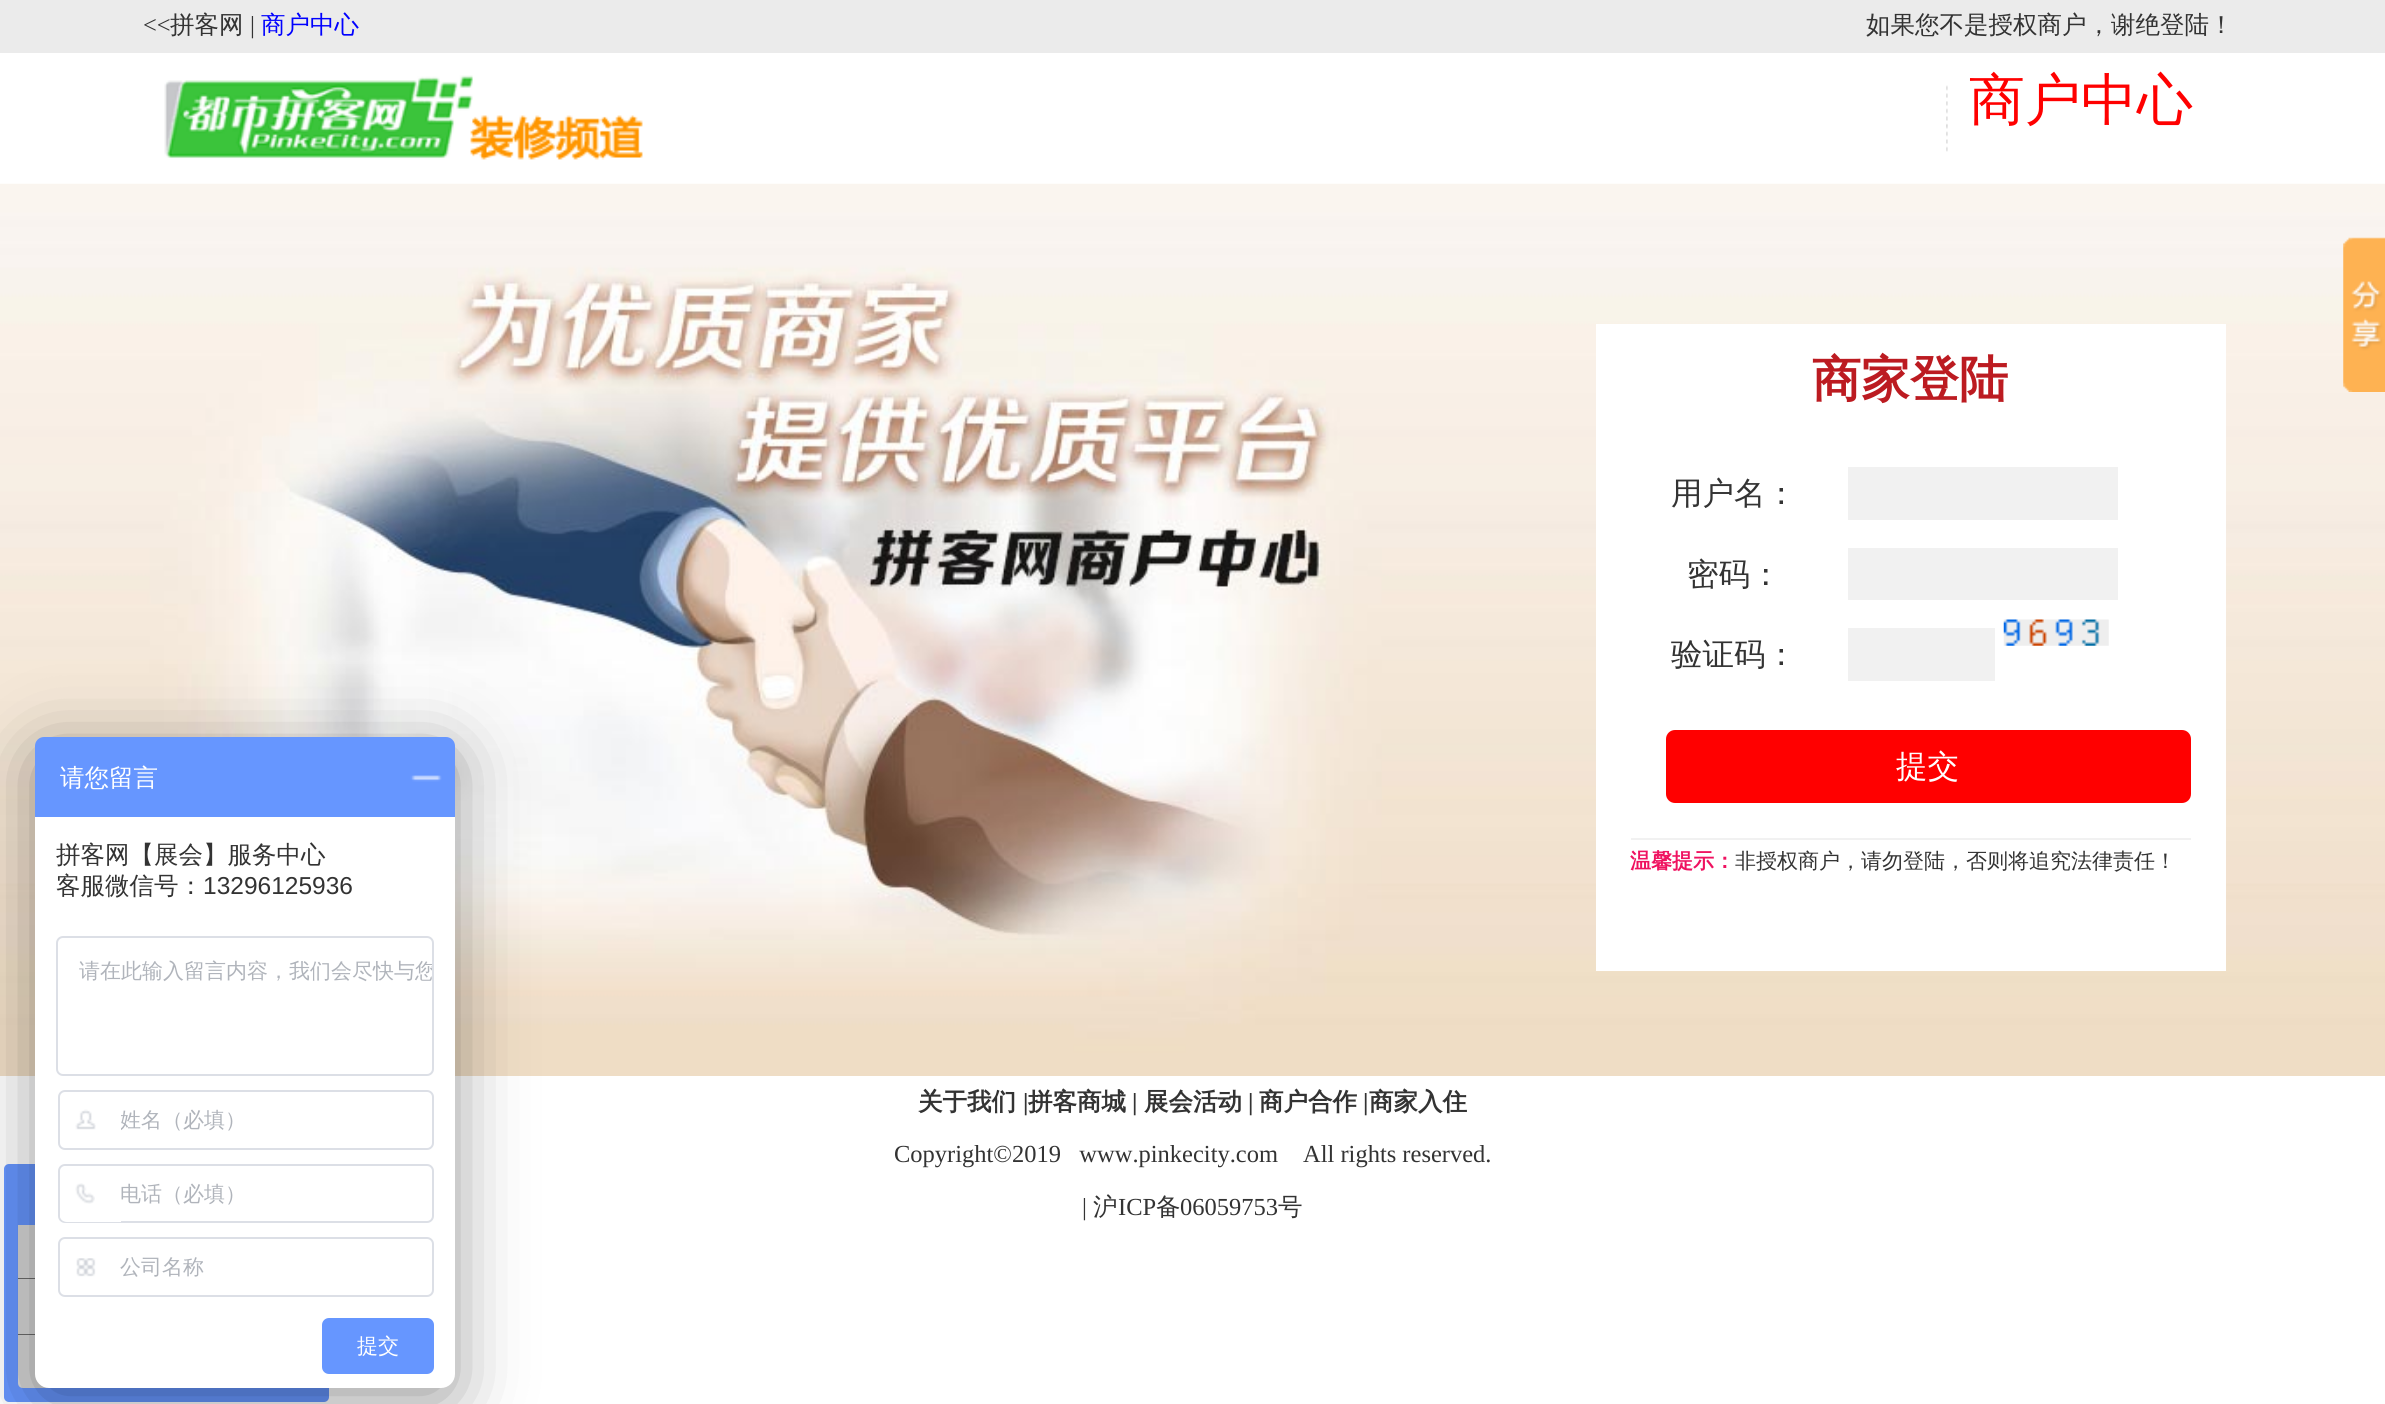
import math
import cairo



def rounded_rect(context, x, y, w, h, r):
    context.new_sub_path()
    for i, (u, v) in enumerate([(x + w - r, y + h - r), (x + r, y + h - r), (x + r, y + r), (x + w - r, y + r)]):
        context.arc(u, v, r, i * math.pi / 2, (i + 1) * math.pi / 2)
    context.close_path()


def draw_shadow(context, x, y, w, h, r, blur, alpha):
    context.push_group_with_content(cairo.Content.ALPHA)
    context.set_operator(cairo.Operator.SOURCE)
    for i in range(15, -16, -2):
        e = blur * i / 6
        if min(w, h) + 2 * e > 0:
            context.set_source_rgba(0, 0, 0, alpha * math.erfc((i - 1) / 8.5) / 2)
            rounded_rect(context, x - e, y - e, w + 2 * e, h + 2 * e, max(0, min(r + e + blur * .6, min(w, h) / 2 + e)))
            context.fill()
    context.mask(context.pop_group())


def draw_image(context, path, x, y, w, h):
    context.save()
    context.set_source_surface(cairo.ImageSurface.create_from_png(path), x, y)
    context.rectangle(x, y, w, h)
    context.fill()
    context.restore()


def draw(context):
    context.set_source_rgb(1, 1, 1)
    context.paint()
    context.set_source_rgb(235 / 255, 235 / 255, 235 / 255)
    context.rectangle(0, 0, 2385, 53)
    context.fill()
    draw_image(context, "images/1.png", 164, 75, 479, 85)
    draw_image(context, "images/2.png", 1946, 85, 2, 67)
    draw_image(context, "images/4.png", 0, 183, 2385, 893)
    draw_image(context, "images/3.png", 2343, 237, 42, 155)
    context.set_source_rgb(1, 1, 1)
    context.rectangle(1596, 324, 630, 647)
    context.fill()
    context.set_source_rgb(241 / 255, 241 / 255, 241 / 255)
    context.rectangle(1848, 467, 270, 53)
    context.fill()
    context.rectangle(1848, 548, 270, 52)
    context.fill()
    context.rectangle(1848, 628, 147, 53)
    context.fill()
    draw_image(context, "images/5.png", 2003, 619, 106, 27)
    context.set_source_rgb(1, 0, 0)
    rounded_rect(context, 1666, 730, 525, 73, 9)
    context.fill()
    context.set_source_rgb(241 / 255, 241 / 255, 241 / 255)
    context.rectangle(1631, 838, 560, 2)
    context.fill()
    context.set_source_rgb(102 / 255, 150 / 255, 1)
    rounded_rect(context, 4, 1164, 325, 238, 5)
    context.fill()
    context.set_source_rgb(217 / 255, 217 / 255, 217 / 255)
    context.rectangle(18, 1225, 17, 53)
    context.fill()
    context.set_source_rgb(109 / 255, 109 / 255, 109 / 255)
    context.rectangle(18, 1278, 17, 1)
    context.fill()
    context.set_source_rgb(217 / 255, 217 / 255, 217 / 255)
    context.rectangle(18, 1279, 17, 55)
    context.fill()
    context.set_source_rgb(109 / 255, 109 / 255, 109 / 255)
    context.rectangle(18, 1334, 17, 1)
    context.fill()
    context.set_source_rgb(217 / 255, 217 / 255, 217 / 255)
    context.new_path()
    context.move_to(18, 1335)
    context.line_to(315, 1335)
    context.line_to(315, 1383)
    context.curve_to(315, 1386, 313, 1388, 310, 1388)
    context.line_to(23, 1388)
    context.curve_to(20, 1388, 18, 1386, 18, 1383)
    context.close_path()
    context.fill()
    context.set_source_rgb(0, 0, 0)
    draw_shadow(context, 35, 751, 420, 651, 14, 35, 0.4)
    context.set_source_rgb(1, 1, 1)
    rounded_rect(context, 35, 737, 420, 651, 14)
    context.fill()
    context.set_source_rgb(102 / 255, 150 / 255, 1)
    context.new_path()
    context.move_to(44, 737)
    context.line_to(446, 737)
    context.curve_to(451, 737, 455, 741, 455, 746)
    context.line_to(455, 817)
    context.line_to(35, 817)
    context.line_to(35, 746)
    context.curve_to(35, 741, 39, 737, 44, 737)
    context.close_path()
    context.fill()
    draw_image(context, "images/6.png", 410, 775, 32, 7)
    rounded_rect(context, 57, 937, 376, 138, 6)
    context.set_source_rgb(220 / 255, 223 / 255, 230 / 255)
    context.stroke()
    rounded_rect(context, 59, 1091, 374, 58, 6)
    context.stroke()
    draw_image(context, "images/7.png", 75, 1109, 21, 21)
    rounded_rect(context, 59, 1165, 374, 57, 6)
    context.stroke()
    context.set_source_rgb(1, 1, 1)
    context.new_path()
    context.move_to(67, 1166)
    context.line_to(121, 1166)
    context.line_to(121, 1222)
    context.line_to(67, 1222)
    context.curve_to(63, 1222, 60, 1219, 60, 1215)
    context.line_to(60, 1173)
    context.curve_to(60, 1169, 63, 1166, 67, 1166)
    context.close_path()
    context.fill()
    draw_image(context, "images/8.png", 75, 1183, 20, 21)
    rounded_rect(context, 59, 1238, 374, 58, 6)
    context.set_source_rgb(220 / 255, 223 / 255, 230 / 255)
    context.stroke()
    draw_image(context, "images/9.png", 76, 1258, 20, 19)
    context.set_source_rgb(102 / 255, 150 / 255, 1)
    rounded_rect(context, 322, 1318, 112, 56, 7)
    context.fill()
    context.select_font_face("Liberation Serif")
    context.set_font_size(24.5)
    context.set_source_rgb(51 / 255, 51 / 255, 51 / 255)
    context.move_to(143, 33)
    context.show_text("<<")
    context.select_font_face("WenQuanYi Zen Hei Medium")
    context.move_to(170, 33)
    context.show_text("拼客网")
    context.select_font_face("Liberation Serif")
    context.move_to(250, 33)
    context.show_text("|")
    context.select_font_face("WenQuanYi Zen Hei Medium")
    context.set_source_rgb(0, 0, 1)
    context.move_to(261, 33)
    context.show_text("商户中心")
    context.set_source_rgb(51 / 255, 51 / 255, 51 / 255)
    context.move_to(1866, 33)
    context.show_text("如果您不是授权商户，谢绝登陆！")
    context.set_font_size(56)
    context.set_source_rgb(1, 0, 0)
    context.move_to(1969, 119)
    context.show_text("商户中心")
    context.select_font_face("WenQuanYi Zen Hei", cairo.FontSlant.NORMAL, cairo.FontWeight.BOLD)
    context.set_font_size(49)
    context.set_source_rgb(188 / 255, 27 / 255, 33 / 255)
    context.move_to(1812, 396)
    context.show_text("商家登陆")
    context.select_font_face("WenQuanYi Zen Hei Medium")
    context.set_font_size(31.5)
    context.set_source_rgb(51 / 255, 51 / 255, 51 / 255)
    context.move_to(1671, 504)
    context.show_text("用户名：")
    context.move_to(1687, 585)
    context.show_text("密码：")
    context.move_to(1671, 665)
    context.show_text("验证码：")
    context.set_source_rgb(1, 1, 1)
    context.move_to(1896, 777)
    context.show_text("提交")
    context.select_font_face("WenQuanYi Zen Hei", cairo.FontSlant.NORMAL, cairo.FontWeight.BOLD)
    context.set_font_size(21)
    context.set_source_rgb(239 / 255, 18 / 255, 96 / 255)
    context.move_to(1630, 868)
    context.show_text("温馨提示：")
    context.select_font_face("WenQuanYi Zen Hei Medium")
    context.set_source_rgb(51 / 255, 51 / 255, 51 / 255)
    context.move_to(1735, 868)
    context.show_text("非授权商户，请勿登陆，否则将追究法律责任！")
    context.set_font_size(24.5)
    context.set_source_rgb(1, 1, 1)
    context.move_to(60, 786)
    context.show_text("请您留言")
    context.set_source_rgb(51 / 255, 51 / 255, 51 / 255)
    context.move_to(56, 863)
    context.show_text("拼客网【展会】服务中心")
    context.move_to(56, 894)
    context.show_text("客服微信号：")
    context.select_font_face("Liberation Sans")
    context.move_to(203, 894)
    context.show_text("13296125936")
    context.save()
    rounded_rect(context, 58, 938, 374, 137, 5)
    context.clip()
    context.select_font_face("WenQuanYi Zen Hei Medium")
    context.set_font_size(21)
    context.set_source_rgb(176 / 255, 180 / 255, 187 / 255)
    context.move_to(79, 978)
    context.show_text("请在此输入留言内容，我们会尽快与您")
    context.restore()
    context.save()
    context.rectangle(121, 1106, 311, 30)
    context.clip()
    context.select_font_face("WenQuanYi Zen Hei Medium")
    context.set_font_size(21)
    context.set_source_rgb(176 / 255, 180 / 255, 187 / 255)
    context.move_to(120, 1127)
    context.show_text("姓名（必填）")
    context.restore()
    context.select_font_face("WenQuanYi Zen Hei Medium")
    context.set_font_size(21)
    context.set_source_rgb(176 / 255, 180 / 255, 187 / 255)
    context.move_to(120, 1201)
    context.show_text("电话（必填）")
    context.move_to(120, 1274)
    context.show_text("公司名称")
    context.set_source_rgb(1, 1, 1)
    context.move_to(357, 1353)
    context.show_text("提交")
    context.select_font_face("WenQuanYi Zen Hei", cairo.FontSlant.NORMAL, cairo.FontWeight.BOLD)
    context.set_font_size(24.5)
    context.set_source_rgb(51 / 255, 51 / 255, 51 / 255)
    context.move_to(918, 1110)
    context.show_text("关于我们")
    context.select_font_face("Liberation Serif", cairo.FontSlant.NORMAL, cairo.FontWeight.BOLD)
    context.move_to(1023, 1110)
    context.show_text("|")
    context.select_font_face("WenQuanYi Zen Hei", cairo.FontSlant.NORMAL, cairo.FontWeight.BOLD)
    context.move_to(1028, 1110)
    context.show_text("拼客商城")
    context.select_font_face("Liberation Serif", cairo.FontSlant.NORMAL, cairo.FontWeight.BOLD)
    context.move_to(1132, 1110)
    context.show_text("|")
    context.select_font_face("WenQuanYi Zen Hei", cairo.FontSlant.NORMAL, cairo.FontWeight.BOLD)
    context.move_to(1144, 1110)
    context.show_text("展会活动")
    context.select_font_face("Liberation Serif", cairo.FontSlant.NORMAL, cairo.FontWeight.BOLD)
    context.move_to(1248, 1110)
    context.show_text("|")
    context.select_font_face("WenQuanYi Zen Hei", cairo.FontSlant.NORMAL, cairo.FontWeight.BOLD)
    context.move_to(1259, 1110)
    context.show_text("商户合作")
    context.select_font_face("Liberation Serif", cairo.FontSlant.NORMAL, cairo.FontWeight.BOLD)
    context.move_to(1363, 1110)
    context.show_text("|")
    context.select_font_face("WenQuanYi Zen Hei", cairo.FontSlant.NORMAL, cairo.FontWeight.BOLD)
    context.move_to(1369, 1110)
    context.show_text("商家入住")
    context.select_font_face("Liberation Serif")
    context.move_to(894, 1162)
    context.show_text("Copyright©2019   www.pinkecity.com")
    context.move_to(1303, 1162)
    context.show_text("All rights reserved.")
    context.move_to(1082, 1215)
    context.show_text("|")
    context.select_font_face("WenQuanYi Zen Hei Medium")
    context.move_to(1093, 1215)
    context.show_text("沪")
    context.select_font_face("Liberation Serif")
    context.move_to(1118, 1215)
    context.show_text("ICP")
    context.select_font_face("WenQuanYi Zen Hei Medium")
    context.move_to(1156, 1215)
    context.show_text("备")
    context.select_font_face("Liberation Serif")
    context.move_to(1180, 1215)
    context.show_text("06059753")
    context.select_font_face("WenQuanYi Zen Hei Medium")
    context.move_to(1278, 1215)
    context.show_text("号")


surface = cairo.ImageSurface(cairo.Format.RGB24, 2385, 1404)
context = cairo.Context(surface)
options = cairo.FontOptions()
options.set_hint_metrics(cairo.HintMetrics.OFF)
options.set_hint_style(cairo.HintStyle.NONE)
context.set_font_options(options)
context.set_miter_limit(4)
draw(context)
surface.write_to_png("out.png")
